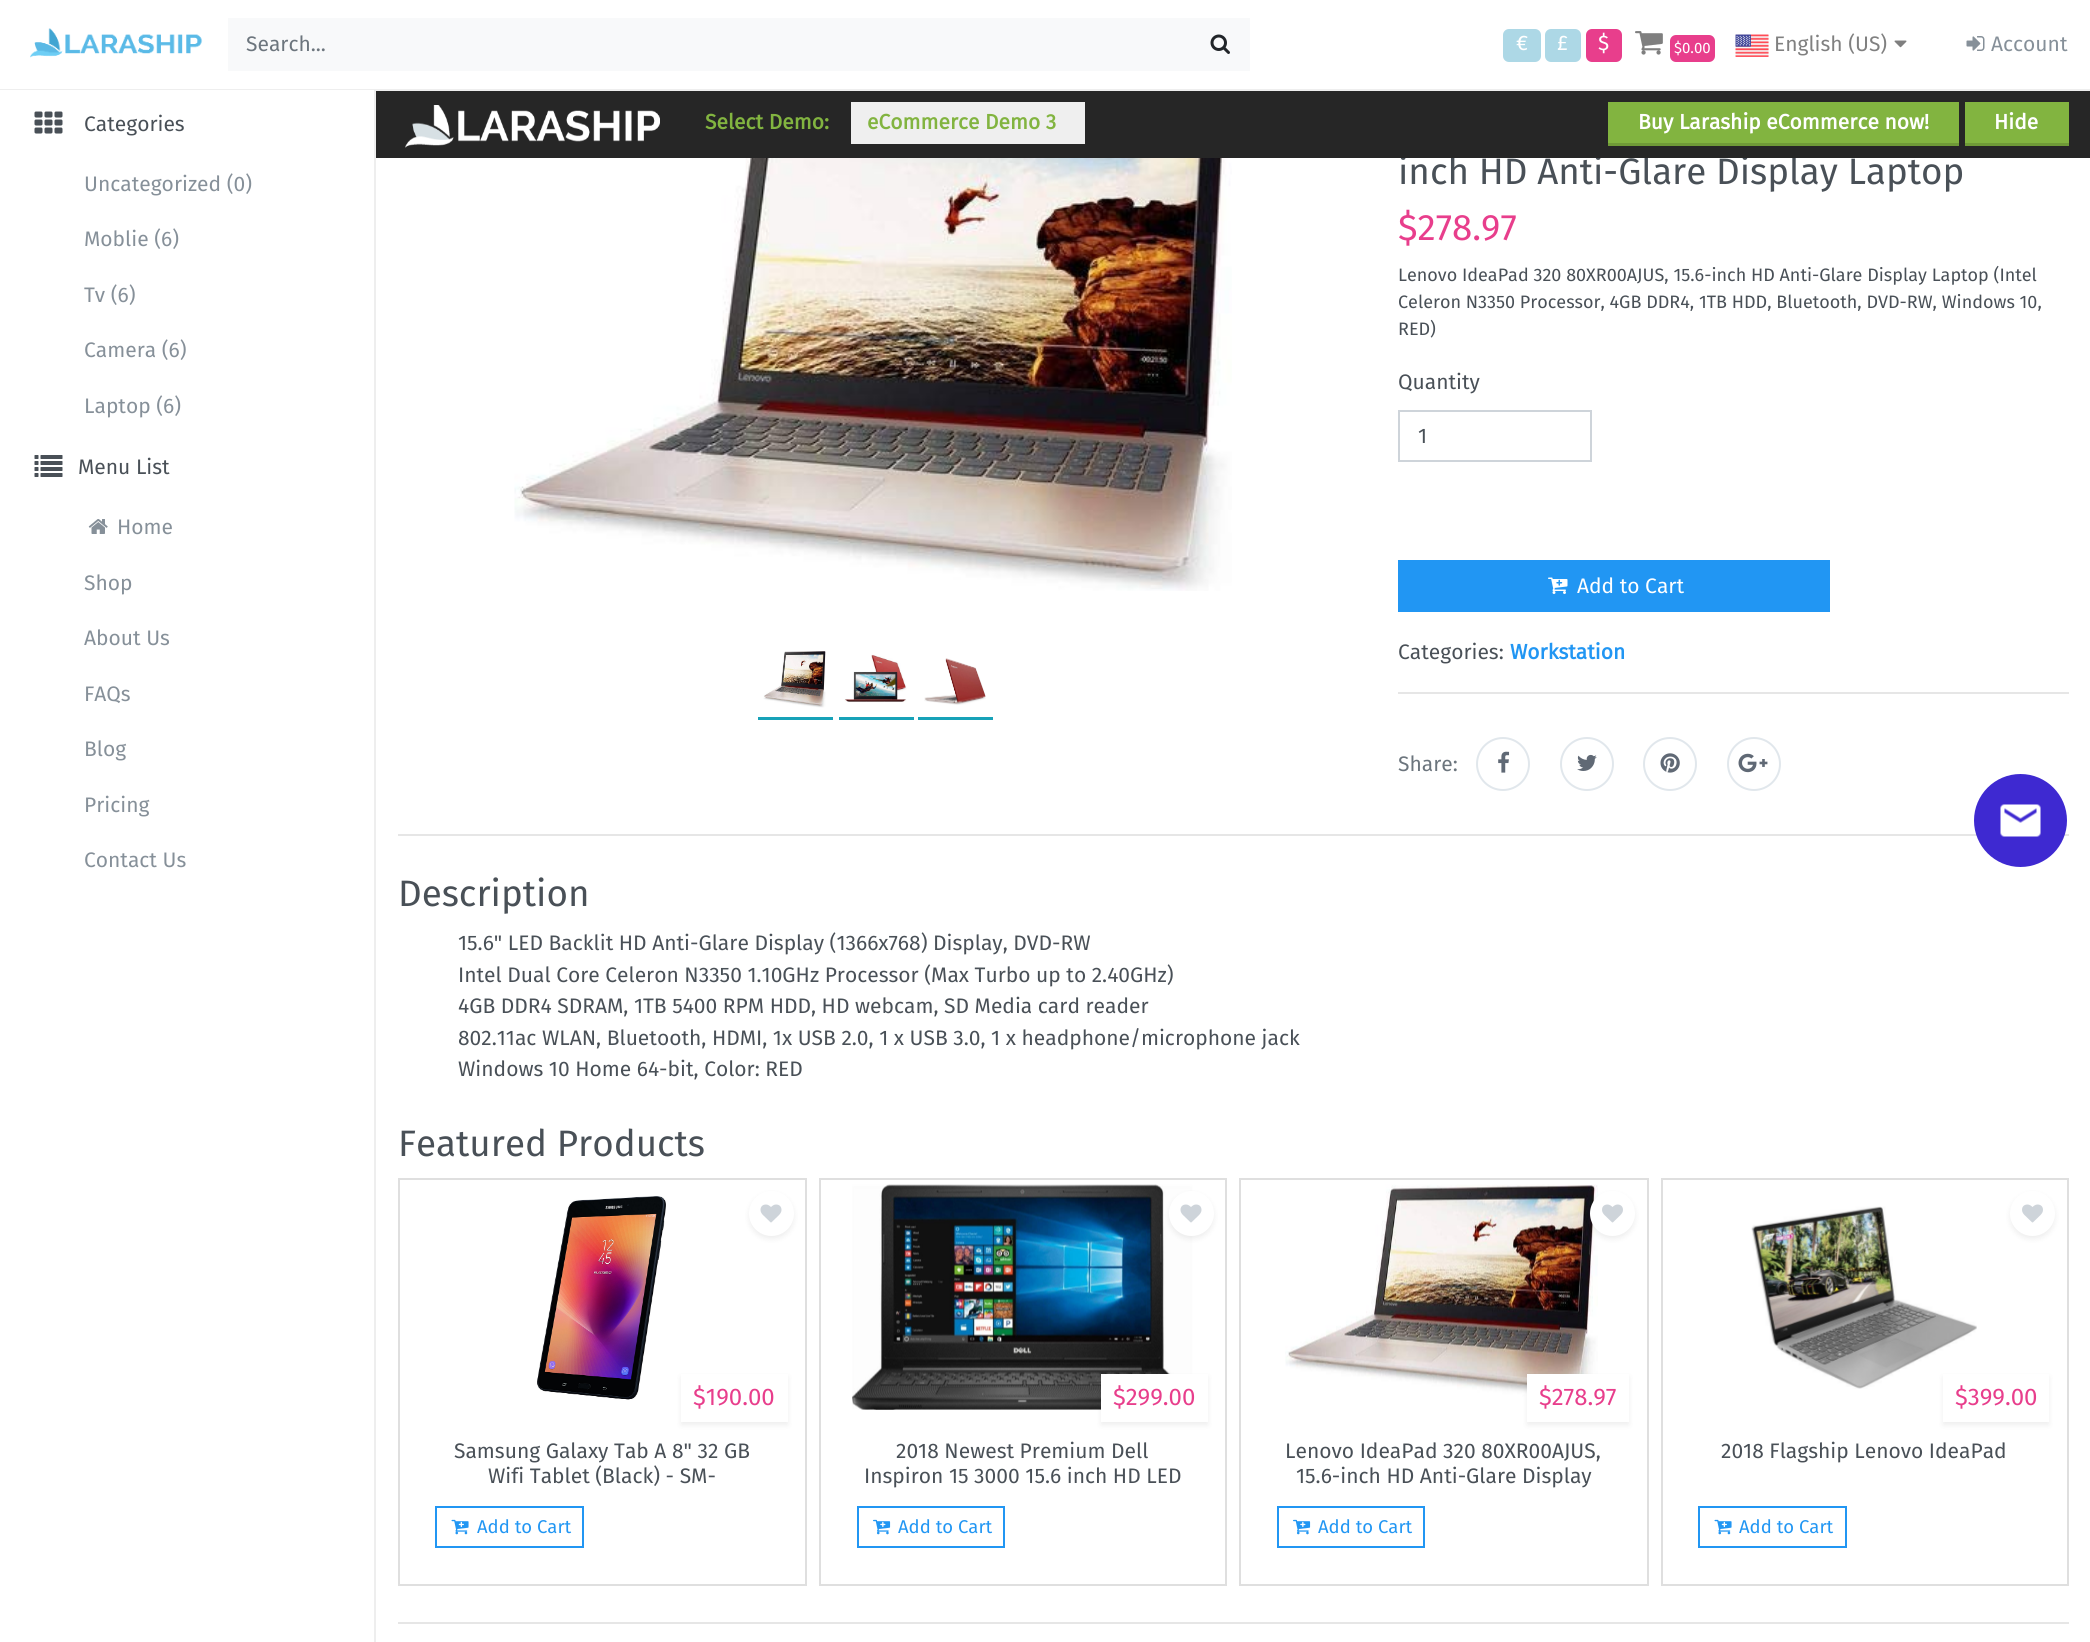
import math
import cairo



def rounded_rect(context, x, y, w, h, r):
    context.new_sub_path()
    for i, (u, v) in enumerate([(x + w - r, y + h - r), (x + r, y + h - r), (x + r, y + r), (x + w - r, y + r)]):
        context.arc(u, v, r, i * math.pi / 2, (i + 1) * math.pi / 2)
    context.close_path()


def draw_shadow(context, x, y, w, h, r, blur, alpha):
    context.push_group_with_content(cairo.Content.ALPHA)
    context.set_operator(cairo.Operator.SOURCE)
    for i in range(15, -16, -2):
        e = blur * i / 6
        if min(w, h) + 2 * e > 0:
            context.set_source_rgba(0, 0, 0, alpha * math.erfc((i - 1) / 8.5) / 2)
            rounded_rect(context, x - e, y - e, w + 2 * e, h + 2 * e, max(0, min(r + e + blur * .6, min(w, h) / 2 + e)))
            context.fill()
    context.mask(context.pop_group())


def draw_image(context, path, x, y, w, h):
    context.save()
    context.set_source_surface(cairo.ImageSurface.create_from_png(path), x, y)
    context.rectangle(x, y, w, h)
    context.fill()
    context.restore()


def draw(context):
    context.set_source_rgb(1, 1, 1)
    context.paint()
    context.set_source_rgb(238 / 255, 238 / 255, 238 / 255)
    context.rectangle(0, 89, 2090, 2)
    context.fill()
    draw_image(context, "images/1.png", 30, 28, 173, 30)
    context.set_source_rgb(248 / 255, 249 / 255, 250 / 255)
    context.rectangle(228, 18, 1022, 53)
    context.fill()
    draw_image(context, "images/2.png", 1210, 34, 20, 20)
    context.set_source_rgb(173 / 255, 216 / 255, 230 / 255)
    rounded_rect(context, 1503, 29, 38, 33, 6)
    context.fill()
    rounded_rect(context, 1545, 29, 36, 33, 6)
    context.fill()
    context.set_source_rgb(232 / 255, 62 / 255, 140 / 255)
    rounded_rect(context, 1586, 29, 36, 33, 6)
    context.fill()
    draw_image(context, "images/3.png", 1635, 31, 28, 24)
    rounded_rect(context, 1670, 35, 45, 27, 6)
    context.fill()
    draw_image(context, "images/4.png", 1735, 34, 34, 23)
    draw_image(context, "images/5.png", 1894, 40, 13, 8)
    draw_image(context, "images/6.png", 1966, 36, 19, 15)
    context.set_source_rgb(1, 1, 1)
    context.rectangle(0, 90, 374, 1)
    context.fill()
    context.set_source_rgb(238 / 255, 238 / 255, 238 / 255)
    context.rectangle(374, 90, 2, 1552)
    context.fill()
    draw_image(context, "images/8.png", 34, 111, 29, 23)
    draw_image(context, "images/9.png", 34, 455, 29, 22)
    draw_image(context, "images/10.png", 88, 519, 20, 15)
    draw_image(context, "images/11.png", 514, 158, 718, 433)
    draw_image(context, "images/12.png", 763, 651, 63, 57)
    context.set_source_rgb(23 / 255, 162 / 255, 184 / 255)
    context.rectangle(758, 717, 75, 3)
    context.fill()
    draw_image(context, "images/13.png", 844, 654, 63, 48)
    context.rectangle(839, 717, 75, 3)
    context.fill()
    draw_image(context, "images/14.png", 924, 658, 62, 47)
    context.rectangle(918, 717, 75, 3)
    context.fill()
    context.rectangle(1399, 411, 192, 50)
    context.set_source_rgb(206 / 255, 212 / 255, 218 / 255)
    context.stroke()
    context.set_source_rgb(33 / 255, 150 / 255, 243 / 255)
    context.rectangle(1398, 560, 432, 52)
    context.fill()
    draw_image(context, "images/15.png", 1548, 577, 20, 17)
    context.set_source_rgb(230 / 255, 230 / 255, 230 / 255)
    context.rectangle(1398, 692, 671, 2)
    context.fill()
    context.arc(1503, 764, 26, 0, 2 * math.pi)
    context.set_source_rgb(225 / 255, 231 / 255, 236 / 255)
    context.stroke()
    draw_image(context, "images/16.png", 1498, 751, 12, 22)
    context.arc(1587, 764, 26, 0, 2 * math.pi)
    context.stroke()
    draw_image(context, "images/17.png", 1577, 754, 20, 17)
    context.arc(1670, 764, 26, 0, 2 * math.pi)
    context.stroke()
    draw_image(context, "images/18.png", 1660, 753, 20, 20)
    context.arc(1754, 764, 26, 0, 2 * math.pi)
    context.stroke()
    draw_image(context, "images/19.png", 1738, 753, 30, 20)
    context.set_source_rgb(230 / 255, 230 / 255, 230 / 255)
    context.rectangle(398, 834, 1671, 2)
    context.fill()
    context.rectangle(399, 1179, 407, 406)
    context.set_source_rgb(223 / 255, 223 / 255, 223 / 255)
    context.stroke()
    draw_image(context, "images/20.png", 537, 1196, 129, 204)
    context.set_source_rgb(0, 0, 0)
    draw_shadow(context, 749, 1194, 45, 45, 22.5, 3, 0.07)
    context.set_source_rgb(1, 1, 1)
    context.arc(771.5, 1213.5, 22.5, 0, 2 * math.pi)
    context.fill()
    draw_image(context, "images/21.png", 760, 1204, 22, 19)
    context.set_source_rgb(0, 0, 0)
    draw_shadow(context, 681, 1377, 107, 48, 0, 3, 0.07)
    context.set_source_rgb(1, 1, 1)
    context.rectangle(681, 1374, 107, 48)
    context.fill()
    context.rectangle(436, 1507, 147, 40)
    context.set_source_rgb(33 / 255, 150 / 255, 243 / 255)
    context.stroke()
    draw_image(context, "images/22.png", 451, 1519, 18, 16)
    context.rectangle(820, 1179, 406, 406)
    context.set_source_rgb(223 / 255, 223 / 255, 223 / 255)
    context.stroke()
    draw_image(context, "images/23.png", 852, 1184, 341, 226)
    context.set_source_rgb(0, 0, 0)
    draw_shadow(context, 1169, 1194, 45, 45, 22.5, 3, 0.07)
    context.set_source_rgb(1, 1, 1)
    context.arc(1191.5, 1213.5, 22.5, 0, 2 * math.pi)
    context.fill()
    draw_image(context, "images/21.png", 1180, 1204, 22, 19)
    context.set_source_rgb(0, 0, 0)
    draw_shadow(context, 1101, 1377, 107, 48, 0, 3, 0.07)
    context.set_source_rgb(1, 1, 1)
    context.rectangle(1101, 1374, 107, 48)
    context.fill()
    context.rectangle(858, 1507, 146, 40)
    context.set_source_rgb(33 / 255, 150 / 255, 243 / 255)
    context.stroke()
    draw_image(context, "images/24.png", 873, 1519, 18, 16)
    context.rectangle(1240, 1179, 408, 406)
    context.set_source_rgb(223 / 255, 223 / 255, 223 / 255)
    context.stroke()
    draw_image(context, "images/25.png", 1285, 1184, 313, 213)
    context.set_source_rgb(0, 0, 0)
    draw_shadow(context, 1590, 1194, 45, 45, 22.5, 3, 0.07)
    context.set_source_rgb(1, 1, 1)
    context.arc(1612.5, 1213.5, 22.5, 0, 2 * math.pi)
    context.fill()
    draw_image(context, "images/26.png", 1602, 1204, 21, 19)
    context.set_source_rgb(0, 0, 0)
    draw_shadow(context, 1527, 1377, 102, 48, 0, 3, 0.07)
    context.set_source_rgb(1, 1, 1)
    context.rectangle(1527, 1374, 102, 48)
    context.fill()
    context.rectangle(1278, 1507, 146, 40)
    context.set_source_rgb(33 / 255, 150 / 255, 243 / 255)
    context.stroke()
    draw_image(context, "images/24.png", 1293, 1519, 18, 16)
    context.rectangle(1662, 1179, 406, 406)
    context.set_source_rgb(223 / 255, 223 / 255, 223 / 255)
    context.stroke()
    draw_image(context, "images/27.png", 1751, 1206, 226, 183)
    context.set_source_rgb(0, 0, 0)
    draw_shadow(context, 2010, 1194, 45, 45, 22.5, 3, 0.07)
    context.set_source_rgb(1, 1, 1)
    context.arc(2032.5, 1213.5, 22.5, 0, 2 * math.pi)
    context.fill()
    draw_image(context, "images/26.png", 2022, 1204, 21, 19)
    context.save()
    context.set_fill_rule(cairo.FillRule.EVEN_ODD)
    context.new_path()
    context.move_to(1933, 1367)
    context.line_to(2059, 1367)
    context.line_to(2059, 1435)
    context.line_to(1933, 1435)
    context.close_path()
    context.move_to(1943, 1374)
    context.line_to(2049, 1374)
    context.line_to(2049, 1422)
    context.line_to(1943, 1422)
    context.close_path()
    context.clip()
    context.set_source_rgb(0, 0, 0)
    draw_shadow(context, 1943, 1377, 106, 48, 0, 3, 0.07)
    context.restore()
    context.rectangle(1699, 1507, 147, 40)
    context.set_source_rgb(33 / 255, 150 / 255, 243 / 255)
    context.stroke()
    draw_image(context, "images/22.png", 1714, 1519, 18, 16)
    context.set_source_rgb(230 / 255, 230 / 255, 230 / 255)
    context.rectangle(398, 1622, 1671, 2)
    context.fill()
    context.set_source_rgb(62 / 255, 41 / 255, 209 / 255)
    context.arc(2020.5, 820.5, 46.5, 0, 2 * math.pi)
    context.fill()
    draw_image(context, "images/28.png", 2000, 804, 41, 33)
    context.select_font_face("Fira Sans")
    context.set_font_size(21)
    context.set_source_rgb(108 / 255, 117 / 255, 125 / 255)
    context.move_to(246, 51)
    context.show_text("Search...")
    context.set_source_rgb(1, 1, 1)
    context.move_to(1516, 50)
    context.show_text("€")
    context.move_to(1557, 50)
    context.show_text("£")
    context.move_to(1598, 50)
    context.show_text("$")
    context.set_font_size(15)
    context.move_to(1674, 53)
    context.show_text("$0.00")
    context.set_font_size(21)
    context.set_source_rgb(128 / 255, 128 / 255, 128 / 255)
    context.move_to(1774, 51)
    context.show_text("English (US)")
    context.set_source_rgb(134 / 255, 144 / 255, 153 / 255)
    context.move_to(1991, 51)
    context.show_text("Account")
    context.set_source_rgb(73 / 255, 80 / 255, 87 / 255)
    context.move_to(84, 131)
    context.show_text("Categories")
    context.set_source_rgb(134 / 255, 144 / 255, 153 / 255)
    context.move_to(84, 191)
    context.show_text("Uncategorized (0)")
    context.move_to(84, 246)
    context.show_text("Moblie (6)")
    context.move_to(84, 302)
    context.show_text("Tv (6)")
    context.move_to(84, 357)
    context.show_text("Camera (6)")
    context.move_to(84, 413)
    context.show_text("Laptop (6)")
    context.set_source_rgb(73 / 255, 80 / 255, 87 / 255)
    context.move_to(78, 474)
    context.show_text("Menu List")
    context.set_source_rgb(134 / 255, 144 / 255, 153 / 255)
    context.move_to(117, 534)
    context.show_text("Home")
    context.move_to(84, 590)
    context.show_text("Shop")
    context.move_to(84, 645)
    context.show_text("About Us")
    context.move_to(84, 701)
    context.show_text("FAQs")
    context.move_to(84, 756)
    context.show_text("Blog")
    context.move_to(84, 812)
    context.show_text("Pricing")
    context.move_to(84, 867)
    context.show_text("Contact Us")
    context.set_font_size(36.75)
    context.set_source_rgb(73 / 255, 80 / 255, 87 / 255)
    context.move_to(1398, 184)
    context.show_text("inch HD Anti-Glare Display Laptop")
    context.set_source_rgb(38 / 255, 38 / 255, 38 / 255)
    context.rectangle(376, 91, 1714, 67)
    context.fill()
    context.set_source_rgb(111 / 255, 154 / 255, 55 / 255)
    context.new_path()
    context.move_to(1965, 142)
    context.line_to(1965, 146)
    context.line_to(2069, 146)
    context.line_to(2069, 105)
    context.line_to(2068, 105)
    context.line_to(2068, 142)
    context.close_path()
    context.fill()
    context.set_source_rgb(130 / 255, 180 / 255, 64 / 255)
    context.rectangle(1965, 102, 104, 41)
    context.fill()
    context.select_font_face("Fira Sans", cairo.FontSlant.NORMAL, cairo.FontWeight.BOLD)
    context.set_font_size(21)
    context.set_source_rgb(1, 1, 1)
    context.move_to(1994, 129)
    context.show_text("Hide")
    context.set_source_rgb(130 / 255, 180 / 255, 64 / 255)
    context.rectangle(1608, 102, 351, 41)
    context.fill()
    context.set_source_rgb(1, 1, 1)
    context.move_to(1638, 129)
    context.show_text("Buy Laraship eCommerce now!")
    context.set_source_rgb(111 / 255, 154 / 255, 55 / 255)
    context.rectangle(1608, 143, 351, 3)
    context.fill()
    context.set_source_rgb(239 / 255, 239 / 255, 239 / 255)
    context.rectangle(851, 102, 234, 42)
    context.fill()
    context.set_source_rgb(130 / 255, 180 / 255, 64 / 255)
    context.move_to(867, 129)
    context.show_text("eCommerce Demo 3")
    context.move_to(705, 129)
    context.show_text("Select Demo:")
    draw_image(context, "images/7.png", 405, 105, 255, 43)
    context.select_font_face("Fira Sans")
    context.set_font_size(36.75)
    context.set_source_rgb(232 / 255, 62 / 255, 140 / 255)
    context.move_to(1398, 240)
    context.show_text("$278.97")
    context.set_font_size(18)
    context.set_source_rgb(73 / 255, 80 / 255, 87 / 255)
    context.move_to(1398, 281)
    context.show_text("Lenovo IdeaPad 320 80XR00AJUS, 15.6-inch HD Anti-Glare Display Laptop (Intel")
    context.move_to(1398, 308)
    context.show_text("Celeron N3350 Processor, 4GB DDR4, 1TB HDD, Bluetooth, DVD-RW, Windows 10,")
    context.move_to(1398, 335)
    context.show_text("RED)")
    context.set_font_size(21)
    context.move_to(1398, 389)
    context.show_text("Quantity")
    context.move_to(1418, 443)
    context.show_text("1")
    context.set_source_rgb(1, 1, 1)
    context.move_to(1577, 593)
    context.show_text("Add to Cart")
    context.set_source_rgb(73 / 255, 80 / 255, 87 / 255)
    context.move_to(1398, 659)
    context.show_text("Categories:")
    context.select_font_face("Fira Sans", cairo.FontSlant.NORMAL, cairo.FontWeight.BOLD)
    context.set_source_rgb(33 / 255, 150 / 255, 243 / 255)
    context.move_to(1510, 659)
    context.show_text("Workstation")
    context.select_font_face("Fira Sans")
    context.set_source_rgb(108 / 255, 117 / 255, 125 / 255)
    context.move_to(1398, 771)
    context.show_text("Share:")
    context.set_font_size(36.75)
    context.set_source_rgb(73 / 255, 80 / 255, 87 / 255)
    context.move_to(398, 906)
    context.show_text("Description")
    context.set_font_size(21)
    context.move_to(458, 950)
    context.show_text("15.6\" LED Backlit HD Anti-Glare Display (1366x768) Display, DVD-RW")
    context.move_to(458, 982)
    context.show_text("Intel Dual Core Celeron N3350 1.10GHz Processor (Max Turbo up to 2.40GHz)")
    context.move_to(458, 1013)
    context.show_text("4GB DDR4 SDRAM, 1TB 5400 RPM HDD, HD webcam, SD Media card reader")
    context.move_to(458, 1045)
    context.show_text("802.11ac WLAN, Bluetooth, HDMI, 1x USB 2.0, 1 x USB 3.0, 1 x headphone/microphone jack")
    context.move_to(458, 1076)
    context.show_text("Windows 10 Home 64-bit, Color: RED")
    context.set_font_size(36.75)
    context.move_to(398, 1156)
    context.show_text("Featured Products")
    context.set_font_size(24)
    context.set_source_rgb(232 / 255, 62 / 255, 140 / 255)
    context.move_to(693, 1405)
    context.show_text("$190.00")
    context.set_font_size(21)
    context.set_source_rgb(73 / 255, 80 / 255, 87 / 255)
    context.move_to(454, 1458)
    context.show_text("Samsung Galaxy Tab A 8\" 32 GB")
    context.move_to(488, 1483)
    context.show_text("Wifi Tablet (Black) - SM-")
    context.set_font_size(18.5)
    context.set_source_rgb(33 / 255, 150 / 255, 243 / 255)
    context.move_to(477, 1533)
    context.show_text("Add to Cart")
    context.set_font_size(24)
    context.set_source_rgb(232 / 255, 62 / 255, 140 / 255)
    context.move_to(1113, 1405)
    context.show_text("$299.00")
    context.set_font_size(21)
    context.set_source_rgb(73 / 255, 80 / 255, 87 / 255)
    context.move_to(896, 1458)
    context.show_text("2018 Newest Premium Dell")
    context.move_to(864, 1483)
    context.show_text("Inspiron 15 3000 15.6 inch HD LED")
    context.set_font_size(18.5)
    context.set_source_rgb(33 / 255, 150 / 255, 243 / 255)
    context.move_to(898, 1533)
    context.show_text("Add to Cart")
    context.set_font_size(24)
    context.set_source_rgb(232 / 255, 62 / 255, 140 / 255)
    context.move_to(1539, 1405)
    context.show_text("$278.97")
    context.set_font_size(21)
    context.set_source_rgb(73 / 255, 80 / 255, 87 / 255)
    context.move_to(1285, 1458)
    context.show_text("Lenovo IdeaPad 320 80XR00AJUS,")
    context.move_to(1296, 1483)
    context.show_text("15.6-inch HD Anti-Glare Display")
    context.set_font_size(18.5)
    context.set_source_rgb(33 / 255, 150 / 255, 243 / 255)
    context.move_to(1318, 1533)
    context.show_text("Add to Cart")
    context.set_font_size(24)
    context.set_source_rgb(232 / 255, 62 / 255, 140 / 255)
    context.move_to(1955, 1405)
    context.show_text("$399.00")
    context.set_font_size(21)
    context.set_source_rgb(73 / 255, 80 / 255, 87 / 255)
    context.move_to(1721, 1458)
    context.show_text("2018 Flagship Lenovo IdeaPad")
    context.set_font_size(18.5)
    context.set_source_rgb(33 / 255, 150 / 255, 243 / 255)
    context.move_to(1739, 1533)
    context.show_text("Add to Cart")


surface = cairo.ImageSurface(cairo.Format.RGB24, 2090, 1642)
context = cairo.Context(surface)
options = cairo.FontOptions()
options.set_hint_metrics(cairo.HintMetrics.OFF)
options.set_hint_style(cairo.HintStyle.NONE)
context.set_font_options(options)
context.set_miter_limit(4)
draw(context)
surface.write_to_png("out.png")
